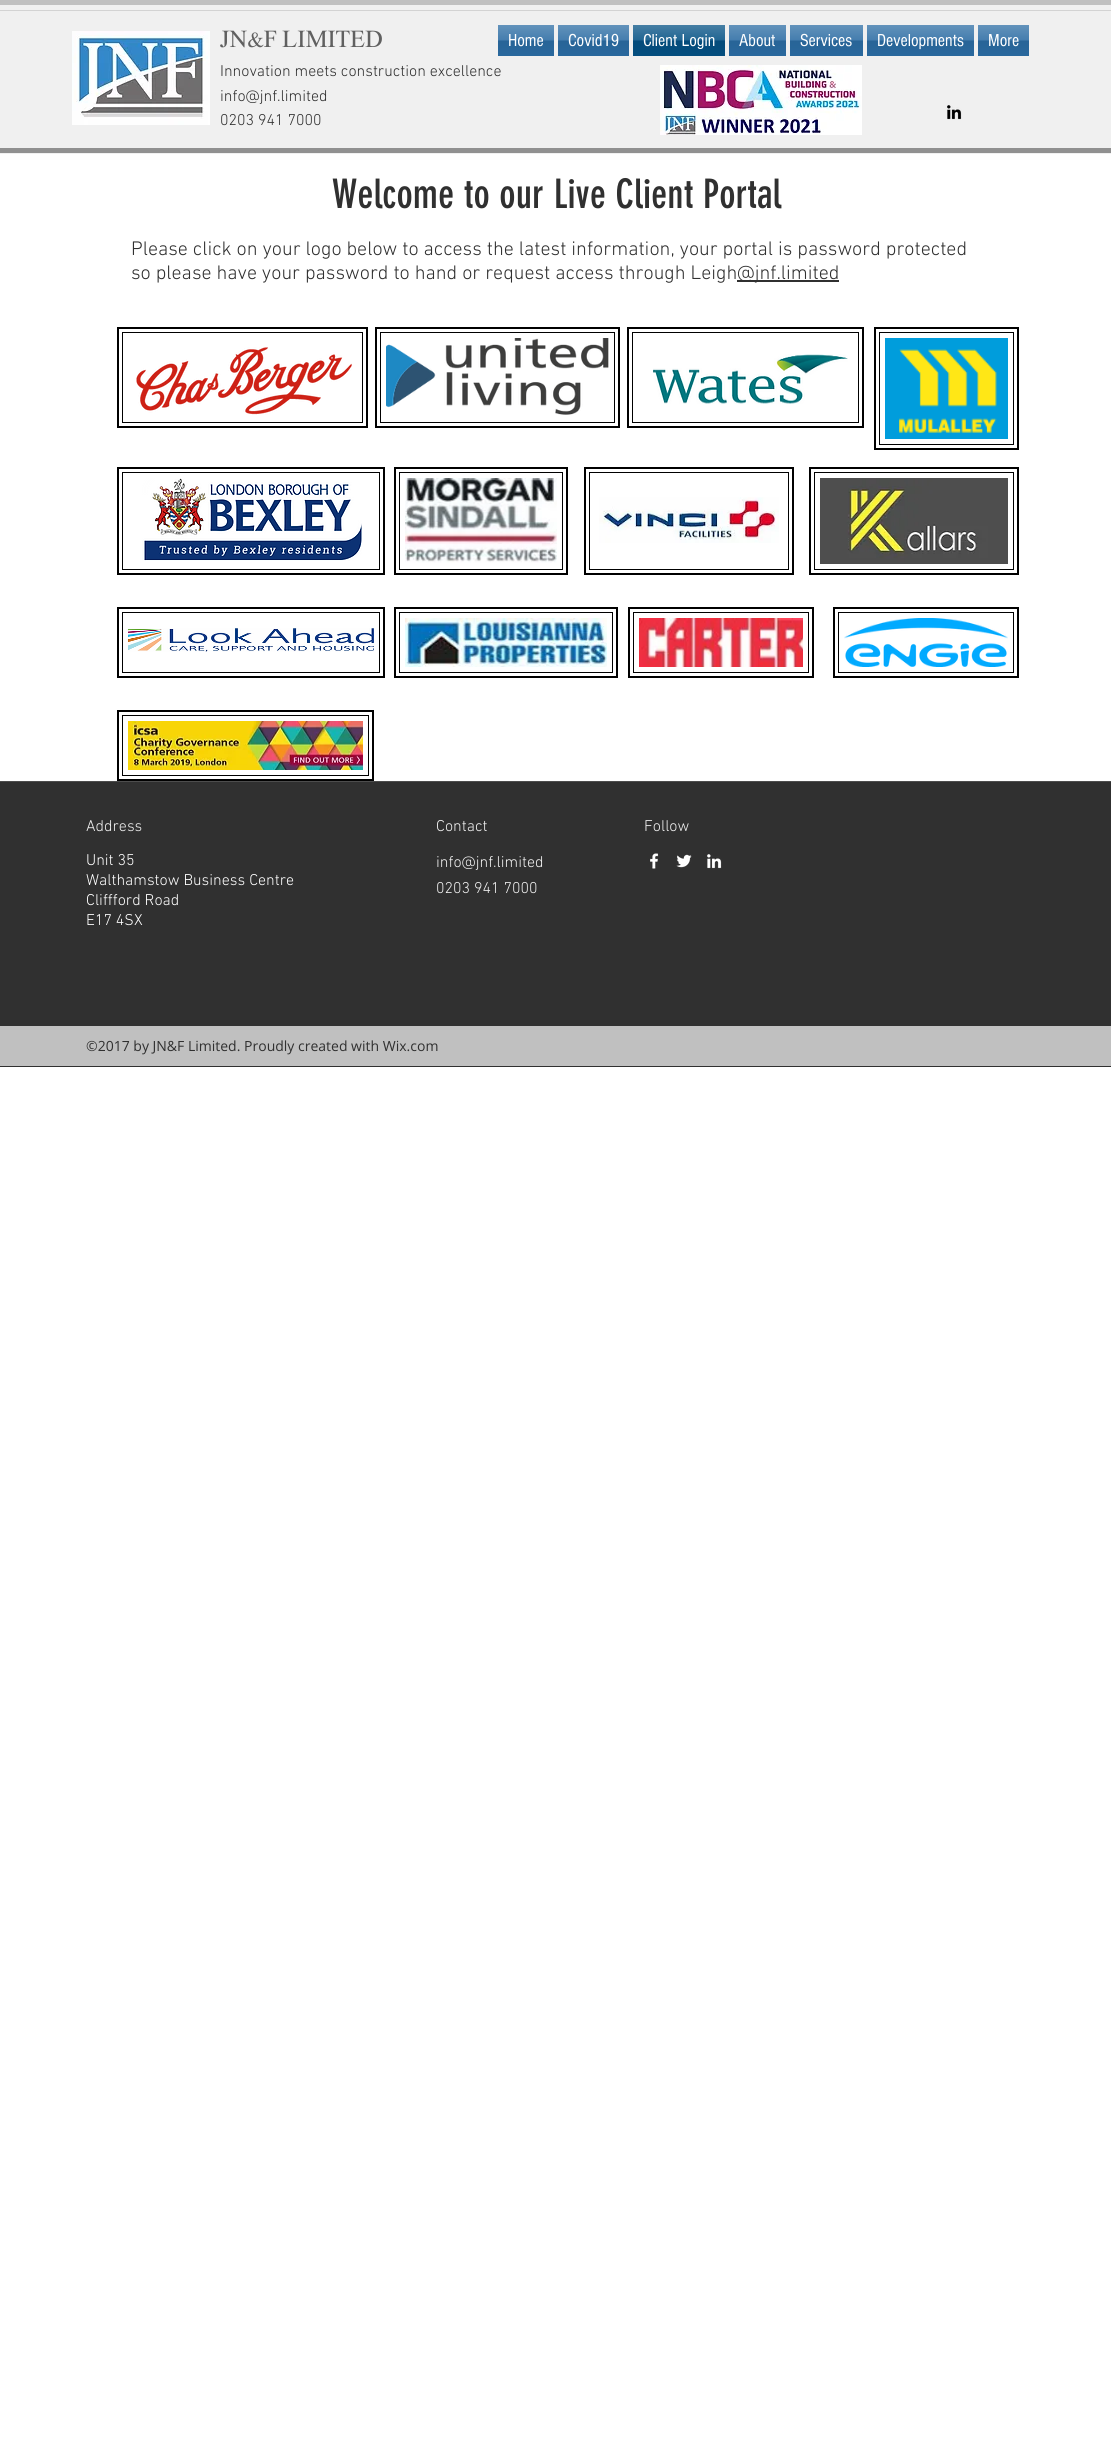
import math
import cairo



def draw_image(context, path, x, y, w, h):
    context.save()
    context.set_source_surface(cairo.ImageSurface.create_from_png(path), x, y)
    context.rectangle(x, y, w, h)
    context.fill()
    context.restore()


def draw(context):
    context.set_source_rgb(1, 1, 1)
    context.paint()
    context.set_source_rgb(240 / 255, 240 / 255, 240 / 255)
    context.rectangle(0, 5, 1111, 149)
    context.fill()
    context.set_source_rgb(192 / 255, 192 / 255, 192 / 255)
    context.rectangle(0, 0, 1111, 5)
    context.fill()
    context.set_source_rgb(211 / 255, 211 / 255, 211 / 255)
    context.rectangle(0, 10, 1111, 1)
    context.fill()
    draw_image(context, "images/1.png", 72, 31, 138, 94)
    context.set_source_rgb(43 / 255, 108 / 255, 163 / 255)
    context.rectangle(498, 25, 56, 31)
    context.fill()
    draw_image(context, "images/2.png", 498, 25, 56, 31)
    context.rectangle(558, 25, 71, 31)
    context.fill()
    draw_image(context, "images/3.png", 558, 25, 71, 31)
    context.set_source_rgb(4 / 255, 81 / 255, 132 / 255)
    context.rectangle(633, 25, 92, 31)
    context.fill()
    draw_image(context, "images/4.png", 633, 25, 92, 31)
    context.set_source_rgb(43 / 255, 108 / 255, 163 / 255)
    context.rectangle(729, 25, 57, 31)
    context.fill()
    draw_image(context, "images/5.png", 729, 25, 57, 31)
    context.rectangle(790, 25, 73, 31)
    context.fill()
    draw_image(context, "images/6.png", 790, 25, 73, 31)
    context.rectangle(867, 25, 107, 31)
    context.fill()
    draw_image(context, "images/7.png", 867, 25, 107, 31)
    context.rectangle(978, 25, 51, 31)
    context.fill()
    draw_image(context, "images/8.png", 978, 25, 51, 31)
    draw_image(context, "images/9.png", 660, 65, 202, 70)
    draw_image(context, "images/10.png", 947, 105, 15, 15)
    context.set_source_rgb(144 / 255, 144 / 255, 144 / 255)
    context.rectangle(0, 148, 1111, 5)
    context.fill()
    context.set_source_rgb(48 / 255, 48 / 255, 48 / 255)
    context.rectangle(737, 280, 102, 2)
    context.fill()
    context.rectangle(118, 328, 249, 99)
    context.set_source_rgb(0, 0, 0)
    context.stroke()
    draw_image(context, "images/11.png", 136, 347, 216, 68)
    context.rectangle(122.5, 332.5, 240, 90)
    context.set_line_width(1)
    context.stroke()
    context.rectangle(376, 328, 243, 99)
    context.set_line_width(2)
    context.stroke()
    draw_image(context, "images/12.png", 386, 338, 223, 77)
    context.rectangle(380.5, 332.5, 234, 90)
    context.set_line_width(1)
    context.stroke()
    context.rectangle(628, 328, 235, 99)
    context.set_line_width(2)
    context.stroke()
    draw_image(context, "images/13.png", 653, 354, 195, 50)
    context.rectangle(632.5, 332.5, 226, 90)
    context.set_line_width(1)
    context.stroke()
    context.rectangle(875, 328, 143, 121)
    context.set_line_width(2)
    context.stroke()
    draw_image(context, "images/14.png", 885, 338, 123, 101)
    context.rectangle(879.5, 332.5, 134, 112)
    context.set_line_width(1)
    context.stroke()
    context.rectangle(118, 468, 266, 106)
    context.set_line_width(2)
    context.stroke()
    draw_image(context, "images/15.png", 142, 478, 220, 83)
    context.rectangle(122.5, 472.5, 257, 97)
    context.set_line_width(1)
    context.stroke()
    context.rectangle(395, 468, 172, 106)
    context.set_line_width(2)
    context.stroke()
    draw_image(context, "images/16.png", 405, 478, 152, 85)
    context.rectangle(399.5, 472.5, 163, 97)
    context.set_line_width(1)
    context.stroke()
    context.rectangle(585, 468, 208, 106)
    context.set_line_width(2)
    context.stroke()
    draw_image(context, "images/17.png", 599, 497, 180, 46)
    context.rectangle(589.5, 472.5, 199, 97)
    context.set_line_width(1)
    context.stroke()
    context.rectangle(810, 468, 208, 106)
    context.set_line_width(2)
    context.stroke()
    draw_image(context, "images/18.png", 820, 478, 188, 86)
    context.rectangle(814.5, 472.5, 199, 97)
    context.set_line_width(1)
    context.stroke()
    context.rectangle(118, 608, 266, 69)
    context.set_line_width(2)
    context.stroke()
    draw_image(context, "images/19.png", 128, 628, 246, 24)
    context.rectangle(122.5, 612.5, 257, 60)
    context.set_line_width(1)
    context.stroke()
    context.rectangle(395, 608, 222, 69)
    context.set_line_width(2)
    context.stroke()
    draw_image(context, "images/20.png", 405, 618, 202, 49)
    context.rectangle(399.5, 612.5, 213, 60)
    context.set_line_width(1)
    context.stroke()
    context.rectangle(629, 608, 184, 69)
    context.set_line_width(2)
    context.stroke()
    draw_image(context, "images/21.png", 639, 618, 164, 49)
    context.rectangle(633.5, 612.5, 175, 60)
    context.set_line_width(1)
    context.stroke()
    context.rectangle(834, 608, 184, 69)
    context.set_line_width(2)
    context.stroke()
    draw_image(context, "images/22.png", 844, 618, 164, 49)
    context.rectangle(838.5, 612.5, 175, 60)
    context.set_line_width(1)
    context.stroke()
    context.rectangle(118, 711, 255, 69)
    context.set_line_width(2)
    context.stroke()
    draw_image(context, "images/23.png", 128, 721, 235, 49)
    context.rectangle(122.5, 715.5, 246, 60)
    context.set_line_width(1)
    context.stroke()
    context.set_source_rgb(48 / 255, 48 / 255, 48 / 255)
    context.rectangle(0, 782, 1111, 285)
    context.fill()
    context.set_source_rgb(77 / 255, 77 / 255, 77 / 255)
    context.rectangle(0, 781, 1111, 1)
    context.fill()
    draw_image(context, "images/24.png", 650, 853, 9, 16)
    draw_image(context, "images/25.png", 676, 854, 16, 14)
    draw_image(context, "images/26.png", 707, 854, 15, 15)
    context.set_source_rgb(192 / 255, 192 / 255, 192 / 255)
    context.rectangle(0, 1026, 1111, 40)
    context.fill()
    context.select_font_face("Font", cairo.FontSlant.NORMAL, cairo.FontWeight.BOLD)
    context.set_font_size(24)
    context.set_source_rgb(96 / 255, 96 / 255, 96 / 255)
    context.move_to(220, 47)
    context.show_text("JN&F LIMITED")
    context.select_font_face("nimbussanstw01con")
    context.set_font_size(18)
    context.set_source_rgb(1, 1, 1)
    context.move_to(508, 46)
    context.show_text("Home")
    context.move_to(568, 46)
    context.show_text("Covid19")
    context.move_to(643, 46)
    context.show_text("Client Login")
    context.move_to(739, 46)
    context.show_text("About")
    context.move_to(800, 46)
    context.show_text("Services")
    context.move_to(877, 46)
    context.show_text("Developments")
    context.move_to(988, 46)
    context.show_text("More")
    context.select_font_face("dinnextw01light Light")
    context.set_font_size(16)
    context.set_source_rgb(48 / 255, 48 / 255, 48 / 255)
    context.move_to(220, 76)
    context.show_text("Innovation meets construction excellence")
    context.move_to(220, 101)
    context.show_text("info@jnf.limited")
    context.move_to(220, 125)
    context.show_text("0203 941 7000")
    context.select_font_face("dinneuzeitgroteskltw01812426")
    context.set_font_size(40)
    context.move_to(332, 208)
    context.show_text("Welcome to our Live Client Portal")
    context.select_font_face("dinnextw01light Light")
    context.set_font_size(20)
    context.move_to(131, 255)
    context.show_text("Please click on your logo below to access the latest information, your portal is password protected")
    context.move_to(131, 279)
    context.show_text("so please have your password to hand or request access through Leigh")
    context.move_to(737, 279)
    context.show_text("@jnf.limited")
    context.set_font_size(16)
    context.set_source_rgb(240 / 255, 240 / 255, 240 / 255)
    context.move_to(86, 831)
    context.show_text("Address")
    context.move_to(436, 831)
    context.show_text("Contact")
    context.move_to(644, 831)
    context.show_text("Follow")
    context.set_source_rgb(1, 1, 1)
    context.move_to(86, 865)
    context.show_text("Unit 35")
    context.move_to(86, 885)
    context.show_text("Walthamstow Business Centre")
    context.move_to(86, 905)
    context.show_text("Cliffford Road")
    context.move_to(86, 925)
    context.show_text("E17 4SX")
    context.set_source_rgb(240 / 255, 240 / 255, 240 / 255)
    context.move_to(436, 867)
    context.show_text("info@jnf.limited")
    context.move_to(436, 893)
    context.show_text("0203 941 7000")
    context.select_font_face("Open Sans")
    context.set_font_size(14)
    context.set_source_rgb(48 / 255, 48 / 255, 48 / 255)
    context.move_to(86, 1051)
    context.show_text("©2017 by JN&F Limited. Proudly created with Wix.com")


surface = cairo.ImageSurface(cairo.Format.RGB24, 1111, 2453)
context = cairo.Context(surface)
options = cairo.FontOptions()
options.set_hint_metrics(cairo.HintMetrics.OFF)
options.set_hint_style(cairo.HintStyle.NONE)
context.set_font_options(options)
context.set_miter_limit(4)
draw(context)
surface.write_to_png("out.png")
